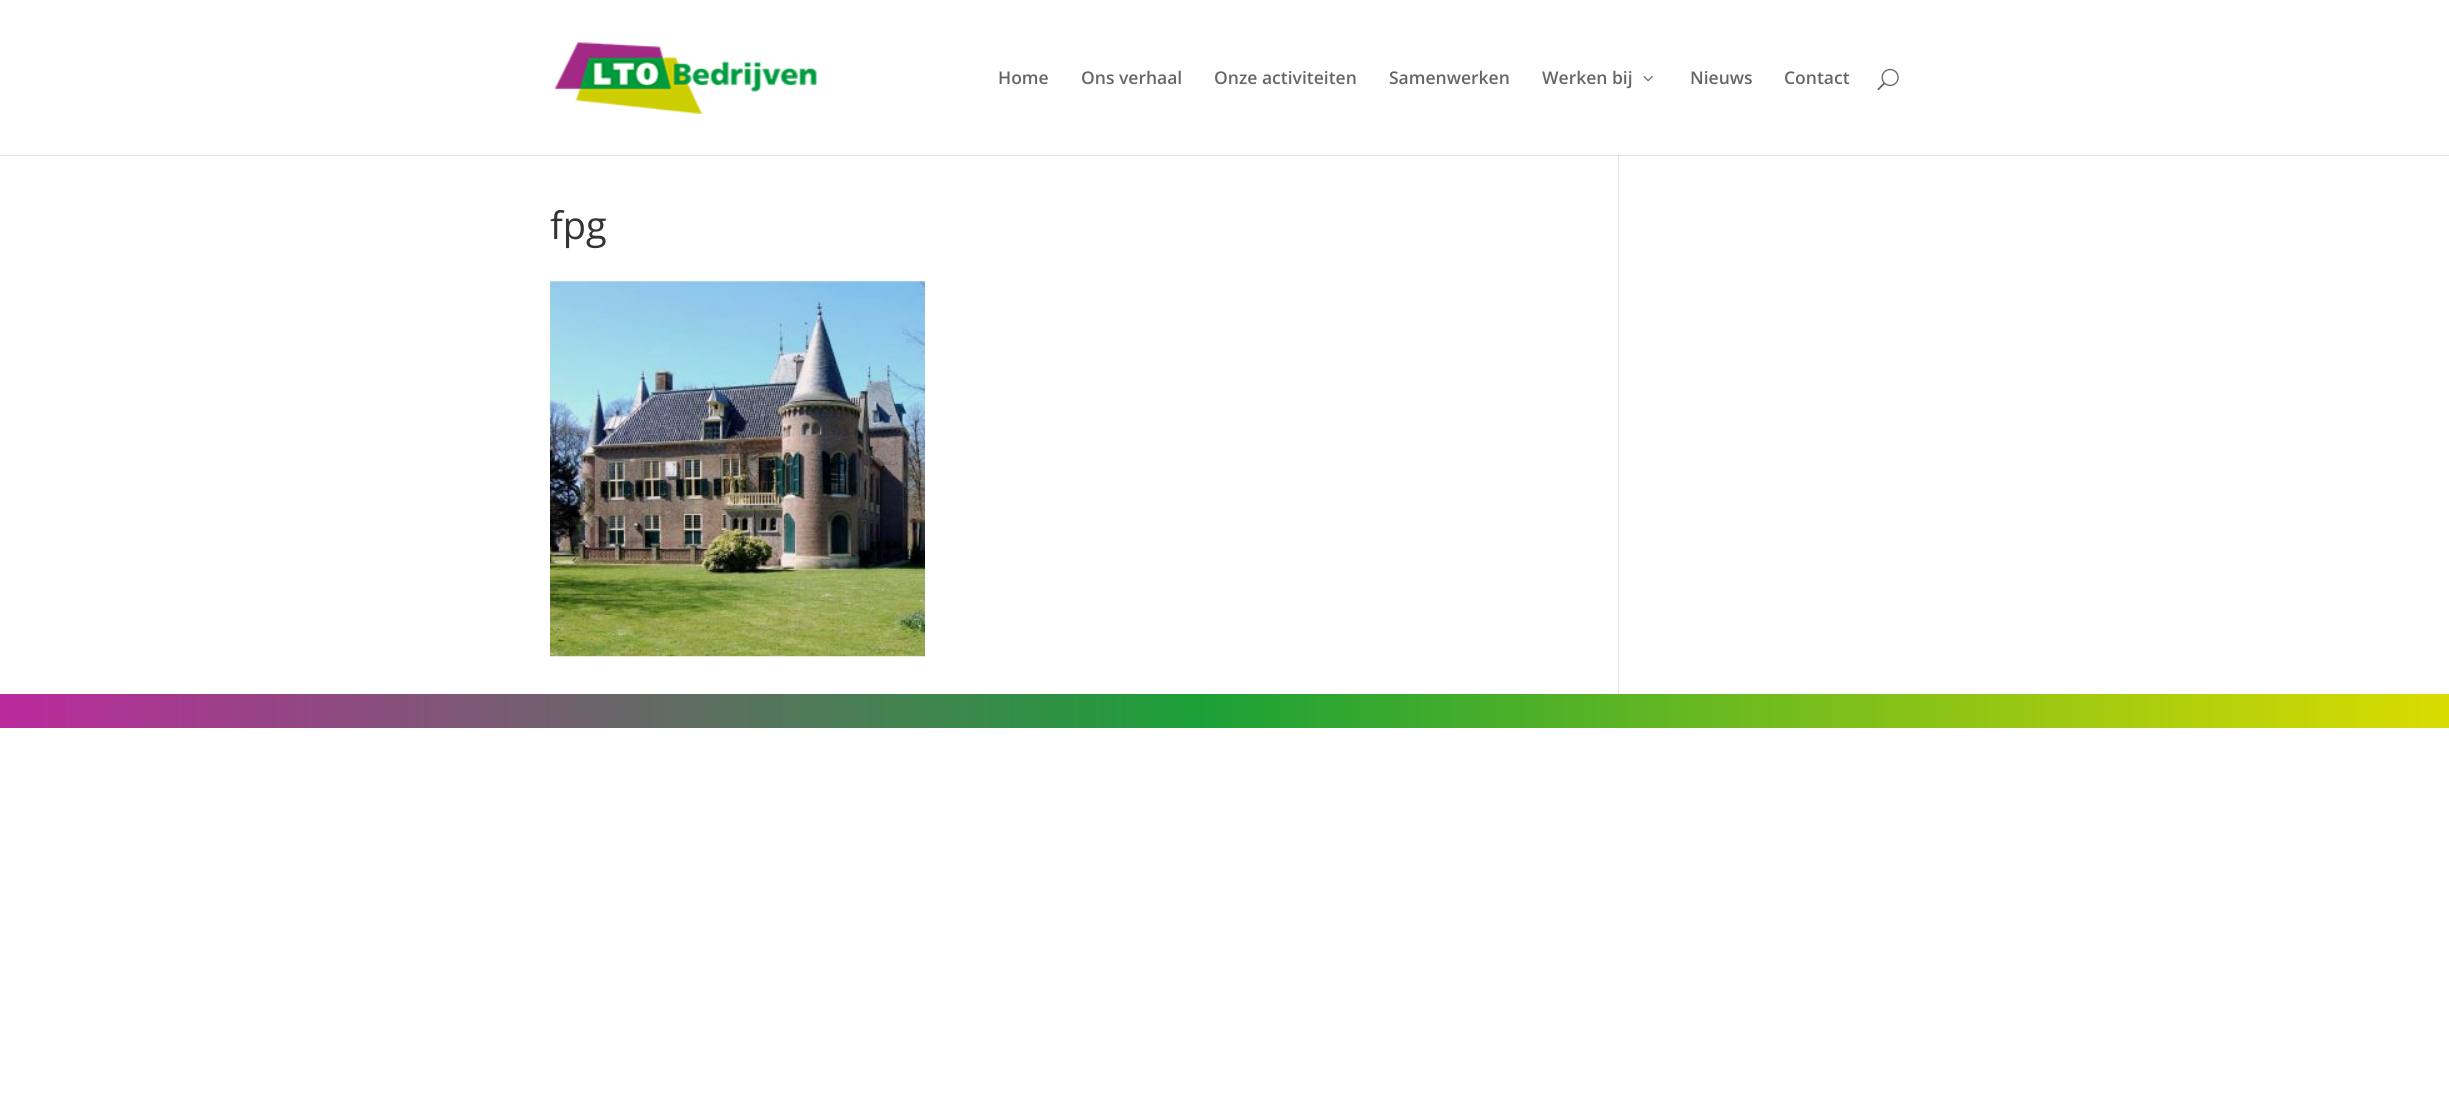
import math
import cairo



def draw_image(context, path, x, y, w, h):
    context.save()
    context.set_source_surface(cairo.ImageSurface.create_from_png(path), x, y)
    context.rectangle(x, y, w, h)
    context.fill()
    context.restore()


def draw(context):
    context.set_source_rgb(1, 1, 1)
    context.paint()
    context.set_source_rgb(230 / 255, 230 / 255, 230 / 255)
    context.rectangle(0, 155, 2449, 1)
    context.fill()
    draw_image(context, "images/1.png", 554, 42, 263, 72)
    draw_image(context, "images/2.png", 1643, 76, 10, 6)
    draw_image(context, "images/3.png", 1877, 68, 22, 23)
    draw_image(context, "images/4.png", 550, 281, 375, 376)
    context.set_source_rgb(226 / 255, 226 / 255, 226 / 255)
    context.rectangle(1618, 156, 1, 538)
    context.fill()
    context.set_source_rgb(203 / 255, 203 / 255, 203 / 255)
    context.rectangle(1618, 155, 1, 1)
    context.fill()
    gradient = cairo.LinearGradient(0, 711, 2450, 711)
    gradient.add_color_stop_rgba(0, 187 / 255, 41 / 255, 157 / 255, 1)
    gradient.add_color_stop_rgba(0.49, 27 / 255, 160 / 255, 55 / 255, 1)
    gradient.add_color_stop_rgba(1, 218 / 255, 220 / 255, 0, 1)
    context.set_source(gradient)
    context.rectangle(0, 694, 2449, 34)
    context.fill()
    context.select_font_face("Open Sans SemiBold")
    context.set_font_size(17.5)
    context.set_source_rgb(102 / 255, 102 / 255, 102 / 255)
    context.move_to(998, 84)
    context.show_text("Home")
    context.move_to(1081, 84)
    context.show_text("Ons verhaal")
    context.move_to(1214, 84)
    context.show_text("Onze activiteiten")
    context.move_to(1389, 84)
    context.show_text("Samenwerken")
    context.move_to(1542, 84)
    context.show_text("Werken bij")
    context.move_to(1690, 84)
    context.show_text("Nieuws")
    context.move_to(1784, 84)
    context.show_text("Contact")
    context.select_font_face("Open Sans")
    context.set_font_size(38)
    context.set_source_rgb(51 / 255, 51 / 255, 51 / 255)
    context.move_to(550, 239)
    context.show_text("fpg")


surface = cairo.ImageSurface(cairo.Format.RGB24, 2449, 1102)
context = cairo.Context(surface)
options = cairo.FontOptions()
options.set_hint_metrics(cairo.HintMetrics.OFF)
options.set_hint_style(cairo.HintStyle.NONE)
context.set_font_options(options)
context.set_miter_limit(4)
draw(context)
surface.write_to_png("out.png")
